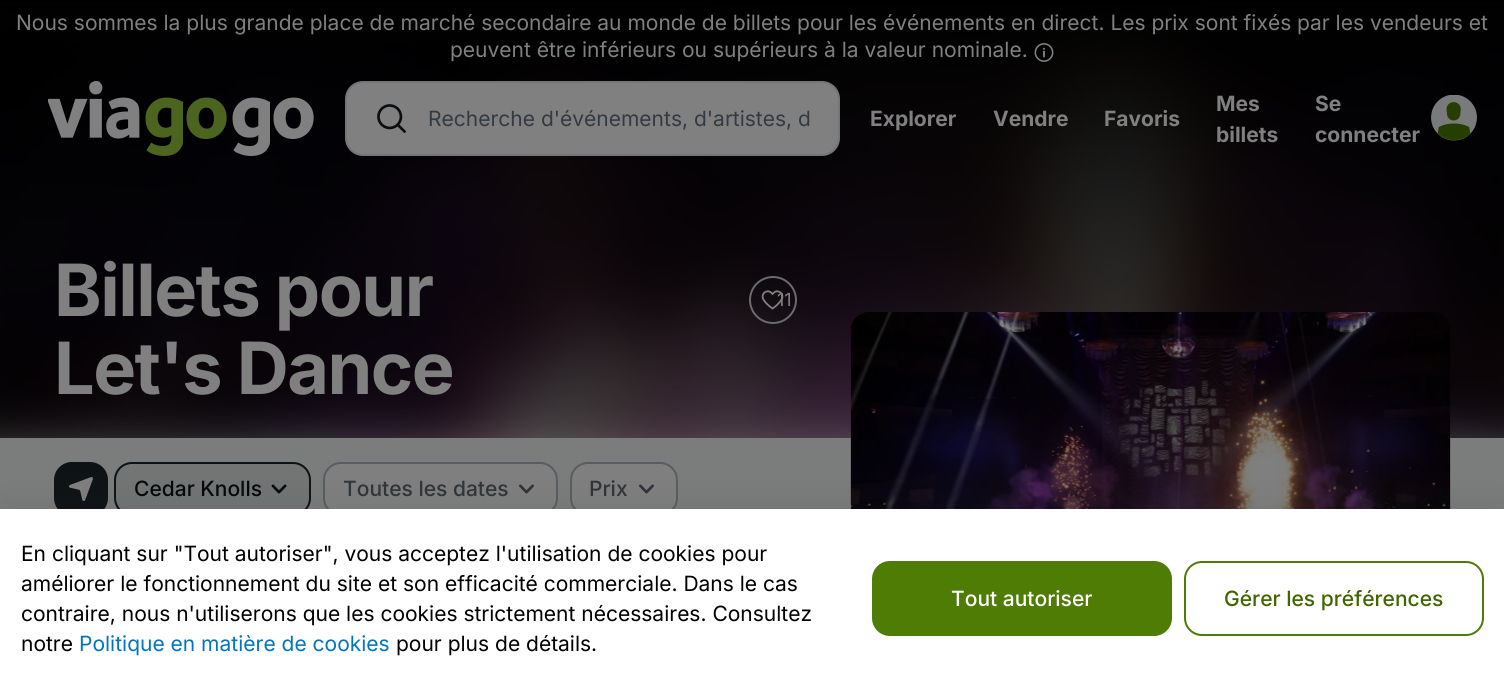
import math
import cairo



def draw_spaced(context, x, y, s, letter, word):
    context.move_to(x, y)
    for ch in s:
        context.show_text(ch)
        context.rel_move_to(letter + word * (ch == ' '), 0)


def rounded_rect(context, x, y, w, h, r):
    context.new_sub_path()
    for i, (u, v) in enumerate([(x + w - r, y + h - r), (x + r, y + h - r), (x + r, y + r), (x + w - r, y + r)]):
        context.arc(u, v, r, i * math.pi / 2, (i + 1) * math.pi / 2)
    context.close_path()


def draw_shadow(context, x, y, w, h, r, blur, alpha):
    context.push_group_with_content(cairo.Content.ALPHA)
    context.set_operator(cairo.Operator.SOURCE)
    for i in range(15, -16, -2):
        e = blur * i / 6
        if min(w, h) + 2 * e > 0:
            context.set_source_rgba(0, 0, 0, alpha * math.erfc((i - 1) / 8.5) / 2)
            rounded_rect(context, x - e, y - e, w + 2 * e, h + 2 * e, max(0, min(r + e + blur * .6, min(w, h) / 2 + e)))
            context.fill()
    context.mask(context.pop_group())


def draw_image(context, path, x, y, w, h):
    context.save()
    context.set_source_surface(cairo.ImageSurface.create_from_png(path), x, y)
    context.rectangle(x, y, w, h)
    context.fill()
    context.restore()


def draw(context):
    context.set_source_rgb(1, 1, 1)
    context.paint()
    draw_image(context, "images/1.png", 0, 5, 1504, 433)
    gradient = cairo.LinearGradient(752, 438, 752, 0)
    gradient.add_color_stop_rgba(0, 0, 0, 0, 0.5)
    gradient.add_color_stop_rgba(1, 0, 0, 0, 1)
    context.set_source(gradient)
    context.rectangle(0, 0, 1504, 438)
    context.fill()
    draw_image(context, "images/2.png", 1034, 43, 20, 19)
    draw_image(context, "images/3.png", 48, 81, 92, 58)
    draw_image(context, "images/4.png", 145, 97, 82, 59)
    draw_image(context, "images/5.png", 232, 97, 82, 59)
    context.set_source_rgb(128 / 255, 128 / 255, 128 / 255)
    rounded_rect(context, 346, 82, 493, 73, 17)
    context.fill_preserve()
    context.set_source_rgb(115 / 255, 117 / 255, 118 / 255)
    context.stroke()
    draw_image(context, "images/6.png", 377, 104, 29, 29)
    draw_image(context, "images/7.png", 1431, 95, 46, 46)
    context.arc(773, 300, 23, 0, 2 * math.pi)
    context.set_source_rgb(104 / 255, 106 / 255, 109 / 255)
    context.stroke()
    context.set_source_rgb(123 / 255, 124 / 255, 124 / 255)
    context.rectangle(0, 438, 1504, 71)
    context.fill()
    context.set_source_rgb(13 / 255, 18 / 255, 21 / 255)
    rounded_rect(context, 54, 462, 54, 54, 18)
    context.fill()
    draw_image(context, "images/9.png", 69, 477, 24, 24)
    context.set_source_rgb(115 / 255, 117 / 255, 117 / 255)
    rounded_rect(context, 115, 463, 195, 52, 17)
    context.fill_preserve()
    context.set_source_rgb(13 / 255, 18 / 255, 21 / 255)
    context.stroke()
    draw_image(context, "images/10.png", 271, 484, 16, 10)
    context.set_source_rgb(128 / 255, 128 / 255, 128 / 255)
    rounded_rect(context, 324, 463, 233, 52, 17)
    context.fill_preserve()
    context.set_source_rgb(89 / 255, 93 / 255, 97 / 255)
    context.stroke()
    draw_image(context, "images/11.png", 519, 484, 15, 10)
    context.set_source_rgb(128 / 255, 128 / 255, 128 / 255)
    rounded_rect(context, 571, 463, 106, 52, 17)
    context.fill_preserve()
    context.set_source_rgb(89 / 255, 93 / 255, 97 / 255)
    context.stroke()
    draw_image(context, "images/11.png", 639, 484, 15, 10)
    draw_image(context, "images/12.png", 850, 312, 601, 197)
    context.set_source_rgb(47 / 255, 52 / 255, 59 / 255)
    draw_shadow(context, 0, 509, 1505, 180, 0, 24, 0.14)
    context.set_source_rgb(1, 1, 1)
    context.rectangle(0, 509, 1504, 179)
    context.fill()
    context.set_source_rgb(78 / 255, 124 / 255, 5 / 255)
    rounded_rect(context, 872, 561, 300, 75, 18)
    context.fill()
    rounded_rect(context, 1185, 562, 298, 73, 17)
    context.stroke()
    context.select_font_face("Inter")
    context.set_font_size(21)
    context.set_source_rgb(128 / 255, 128 / 255, 128 / 255)
    context.move_to(16, 30)
    context.show_text("Nous sommes la plus grande place de marché secondaire au monde de billets pour les événements en direct. Les prix sont fixés par les vendeurs et")
    context.move_to(450, 57)
    context.show_text("peuvent être inférieurs ou supérieurs à la valeur nominale.")
    context.set_source_rgb(52 / 255, 58 / 255, 66 / 255)
    context.move_to(428, 126)
    context.show_text("Recherche d'événements, d'artistes, d")
    context.select_font_face("Inter", cairo.FontSlant.NORMAL, cairo.FontWeight.BOLD)
    context.set_source_rgb(128 / 255, 128 / 255, 128 / 255)
    context.move_to(870, 126)
    context.show_text("Explorer")
    context.move_to(993, 126)
    context.show_text("Vendre")
    context.move_to(1104, 126)
    context.show_text("Favoris")
    context.move_to(1216, 111)
    context.show_text("Mes")
    context.move_to(1216, 142)
    context.show_text("billets")
    context.move_to(1315, 111)
    context.show_text("Se")
    context.move_to(1315, 142)
    context.show_text("connecter")
    context.set_font_size(72)
    draw_spaced(context, 54, 316, "Billets pour", -1.5, 0)
    draw_spaced(context, 54, 394, "Let's Dance", -1.5, 0)
    context.select_font_face("Inter")
    context.set_font_size(18)
    context.move_to(777, 306)
    context.show_text("11")
    draw_image(context, "images/8.png", 761, 290, 23, 20)
    context.select_font_face("Inter Medium")
    context.set_font_size(21)
    context.set_source_rgb(5 / 255, 9 / 255, 12 / 255)
    context.move_to(134, 496)
    context.show_text("Cedar Knolls")
    context.set_source_rgb(48 / 255, 53 / 255, 56 / 255)
    context.move_to(343, 496)
    context.show_text("Toutes les dates")
    context.move_to(589, 496)
    context.show_text("Prix")
    context.select_font_face("Inter")
    context.set_source_rgb(0, 0, 0)
    context.move_to(21, 561)
    context.show_text("En cliquant sur \"Tout autoriser\", vous acceptez l'utilisation de cookies pour")
    context.move_to(21, 591)
    context.show_text("améliorer le fonctionnement du site et son efficacité commerciale. Dans le cas")
    context.move_to(21, 621)
    context.show_text("contraire, nous n'utiliserons que les cookies strictement nécessaires. Consultez")
    context.move_to(21, 651)
    context.show_text("notre")
    context.set_source_rgb(0, 117 / 255, 196 / 255)
    context.move_to(79, 651)
    context.show_text("Politique en matière de cookies")
    context.set_source_rgb(0, 0, 0)
    context.move_to(396, 651)
    context.show_text("pour plus de détails.")
    context.select_font_face("Inter Medium")
    context.set_source_rgb(1, 1, 1)
    context.move_to(951, 606)
    context.show_text("Tout autoriser")
    context.set_source_rgb(63 / 255, 102 / 255, 0)
    context.move_to(1224, 606)
    context.show_text("Gérer les préférences")


surface = cairo.ImageSurface(cairo.Format.RGB24, 1504, 688)
context = cairo.Context(surface)
options = cairo.FontOptions()
options.set_hint_metrics(cairo.HintMetrics.OFF)
options.set_hint_style(cairo.HintStyle.NONE)
context.set_font_options(options)
context.set_miter_limit(4)
draw(context)
surface.write_to_png("out.png")
